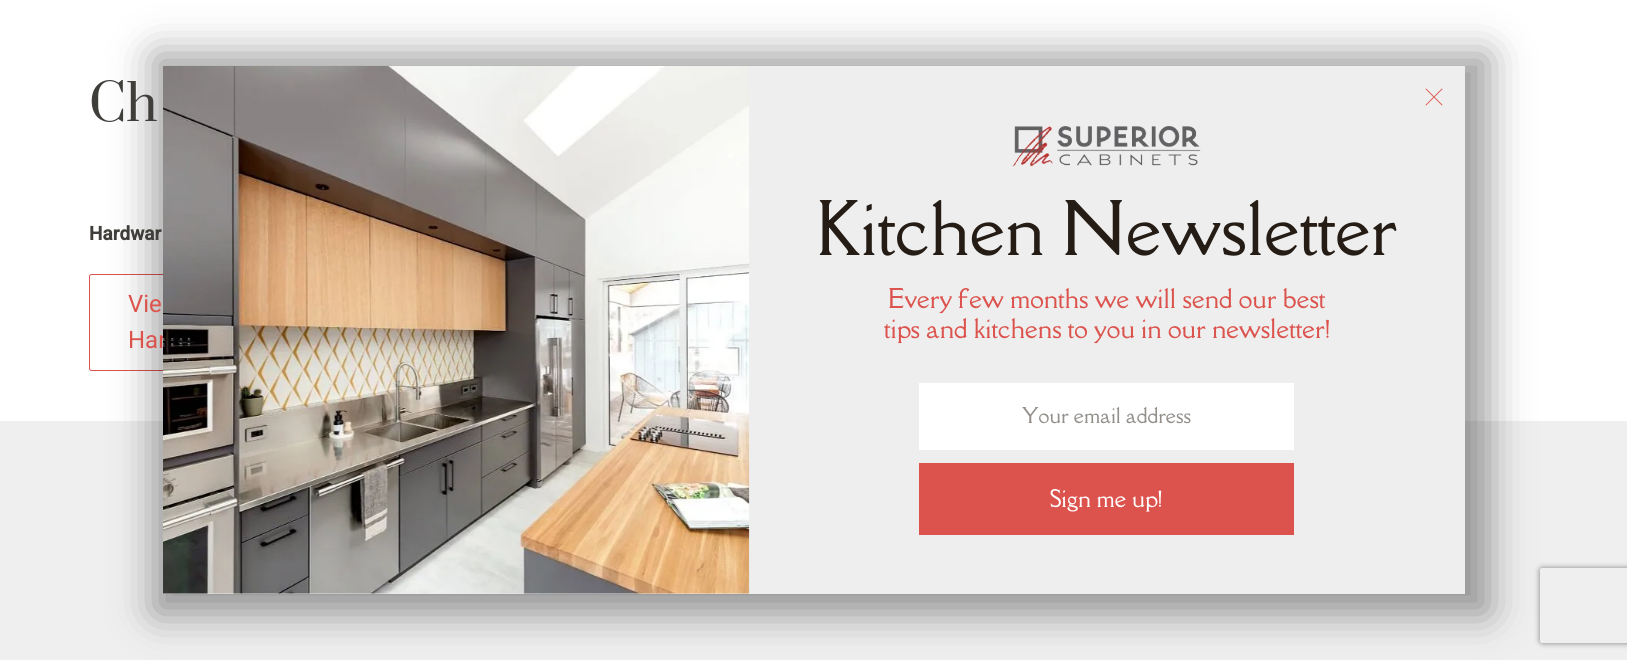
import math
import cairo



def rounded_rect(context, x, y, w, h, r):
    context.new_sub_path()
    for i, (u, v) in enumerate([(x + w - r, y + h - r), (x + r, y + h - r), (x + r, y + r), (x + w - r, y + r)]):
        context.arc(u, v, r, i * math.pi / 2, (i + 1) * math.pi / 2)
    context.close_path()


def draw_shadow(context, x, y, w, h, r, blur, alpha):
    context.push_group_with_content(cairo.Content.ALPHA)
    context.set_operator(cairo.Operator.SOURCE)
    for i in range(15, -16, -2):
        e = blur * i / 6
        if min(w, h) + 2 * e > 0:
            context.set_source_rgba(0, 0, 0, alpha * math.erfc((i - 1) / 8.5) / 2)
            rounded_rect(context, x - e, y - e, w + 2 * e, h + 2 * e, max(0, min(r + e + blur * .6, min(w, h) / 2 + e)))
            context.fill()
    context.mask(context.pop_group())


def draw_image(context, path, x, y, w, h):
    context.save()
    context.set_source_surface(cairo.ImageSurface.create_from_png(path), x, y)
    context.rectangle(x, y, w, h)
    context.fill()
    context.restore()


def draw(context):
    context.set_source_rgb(1, 1, 1)
    context.paint()
    rounded_rect(context, 89.5, 274.5, 343, 96, 2)
    context.set_source_rgb(220 / 255, 83 / 255, 77 / 255)
    context.set_line_width(1)
    context.stroke()
    context.set_source_rgb(239 / 255, 239 / 255, 239 / 255)
    context.rectangle(0, 421, 1627, 239)
    context.fill()
    context.set_source_rgb(0, 0, 0)
    draw_shadow(context, 155, 55, 1333, 558, 0, 21, 0.4)
    context.save()
    context.set_fill_rule(cairo.FillRule.EVEN_ODD)
    context.new_path()
    context.move_to(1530, 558)
    context.line_to(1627, 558)
    context.line_to(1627, 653)
    context.line_to(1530, 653)
    context.close_path()
    context.move_to(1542.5, 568)
    context.line_to(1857.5, 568)
    context.curve_to(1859, 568, 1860, 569, 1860, 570.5)
    context.line_to(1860, 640.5)
    context.curve_to(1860, 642, 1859, 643, 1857.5, 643)
    context.line_to(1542.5, 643)
    context.curve_to(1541, 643, 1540, 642, 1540, 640.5)
    context.line_to(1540, 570.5)
    context.curve_to(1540, 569, 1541, 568, 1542.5, 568)
    context.close_path()
    context.clip()
    context.set_source_rgb(128 / 255, 128 / 255, 128 / 255)
    draw_shadow(context, 1540, 568, 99, 75, 2.5, 3, 1)
    context.restore()
    context.select_font_face("Prata")
    context.set_font_size(50)
    context.set_source_rgb(64 / 255, 62 / 255, 59 / 255)
    context.move_to(89, 121)
    context.show_text("Ch")
    context.select_font_face("Roboto", cairo.FontSlant.NORMAL, cairo.FontWeight.BOLD)
    context.set_font_size(19)
    context.move_to(89, 240)
    context.show_text("Hardwar")
    context.select_font_face("Roboto")
    context.set_font_size(24)
    context.set_source_rgb(220 / 255, 83 / 255, 77 / 255)
    context.move_to(128, 312)
    context.show_text("Vie")
    context.move_to(128, 348)
    context.show_text("Har")
    context.set_source_rgb(238 / 255, 238 / 255, 238 / 255)
    context.rectangle(163, 66, 1302, 528)
    context.fill()
    draw_image(context, "images/1.png", 163, 66, 587, 528)
    context.new_path()
    context.move_to(1426, 89)
    context.line_to(1442, 105)
    context.move_to(1442, 89)
    context.line_to(1426, 105)
    context.set_source_rgb(220 / 255, 83 / 255, 77 / 255)
    context.set_line_width(0.9)
    context.set_line_cap(cairo.LineCap.ROUND)
    context.stroke()
    draw_image(context, "images/2.png", 1012, 126, 189, 41)
    context.select_font_face("Della Respira")
    context.set_font_size(68.75)
    context.set_source_rgb(36 / 255, 28 / 255, 21 / 255)
    context.move_to(816, 255)
    context.show_text("Kitchen Newsletter")
    context.set_font_size(25)
    context.set_source_rgb(220 / 255, 83 / 255, 77 / 255)
    context.move_to(888, 308)
    context.show_text("Every few months we will send our best")
    context.move_to(884, 338)
    context.show_text("tips and kitchens to you in our newsletter!")
    context.set_source_rgb(1, 1, 1)
    context.rectangle(919, 383, 375, 67)
    context.fill()
    context.set_font_size(20)
    context.set_source_rgb(146 / 255, 142 / 255, 138 / 255)
    context.move_to(1022, 423)
    context.show_text("Your email address")
    context.set_source_rgb(220 / 255, 83 / 255, 77 / 255)
    context.rectangle(919, 463, 375, 72)
    context.fill()
    context.set_font_size(22.5)
    context.set_source_rgb(1, 1, 1)
    context.move_to(1050, 507)
    context.show_text("Sign me up!")


surface = cairo.ImageSurface(cairo.Format.RGB24, 1627, 660)
context = cairo.Context(surface)
options = cairo.FontOptions()
options.set_hint_metrics(cairo.HintMetrics.OFF)
options.set_hint_style(cairo.HintStyle.NONE)
context.set_font_options(options)
context.set_miter_limit(4)
draw(context)
surface.write_to_png("out.png")
